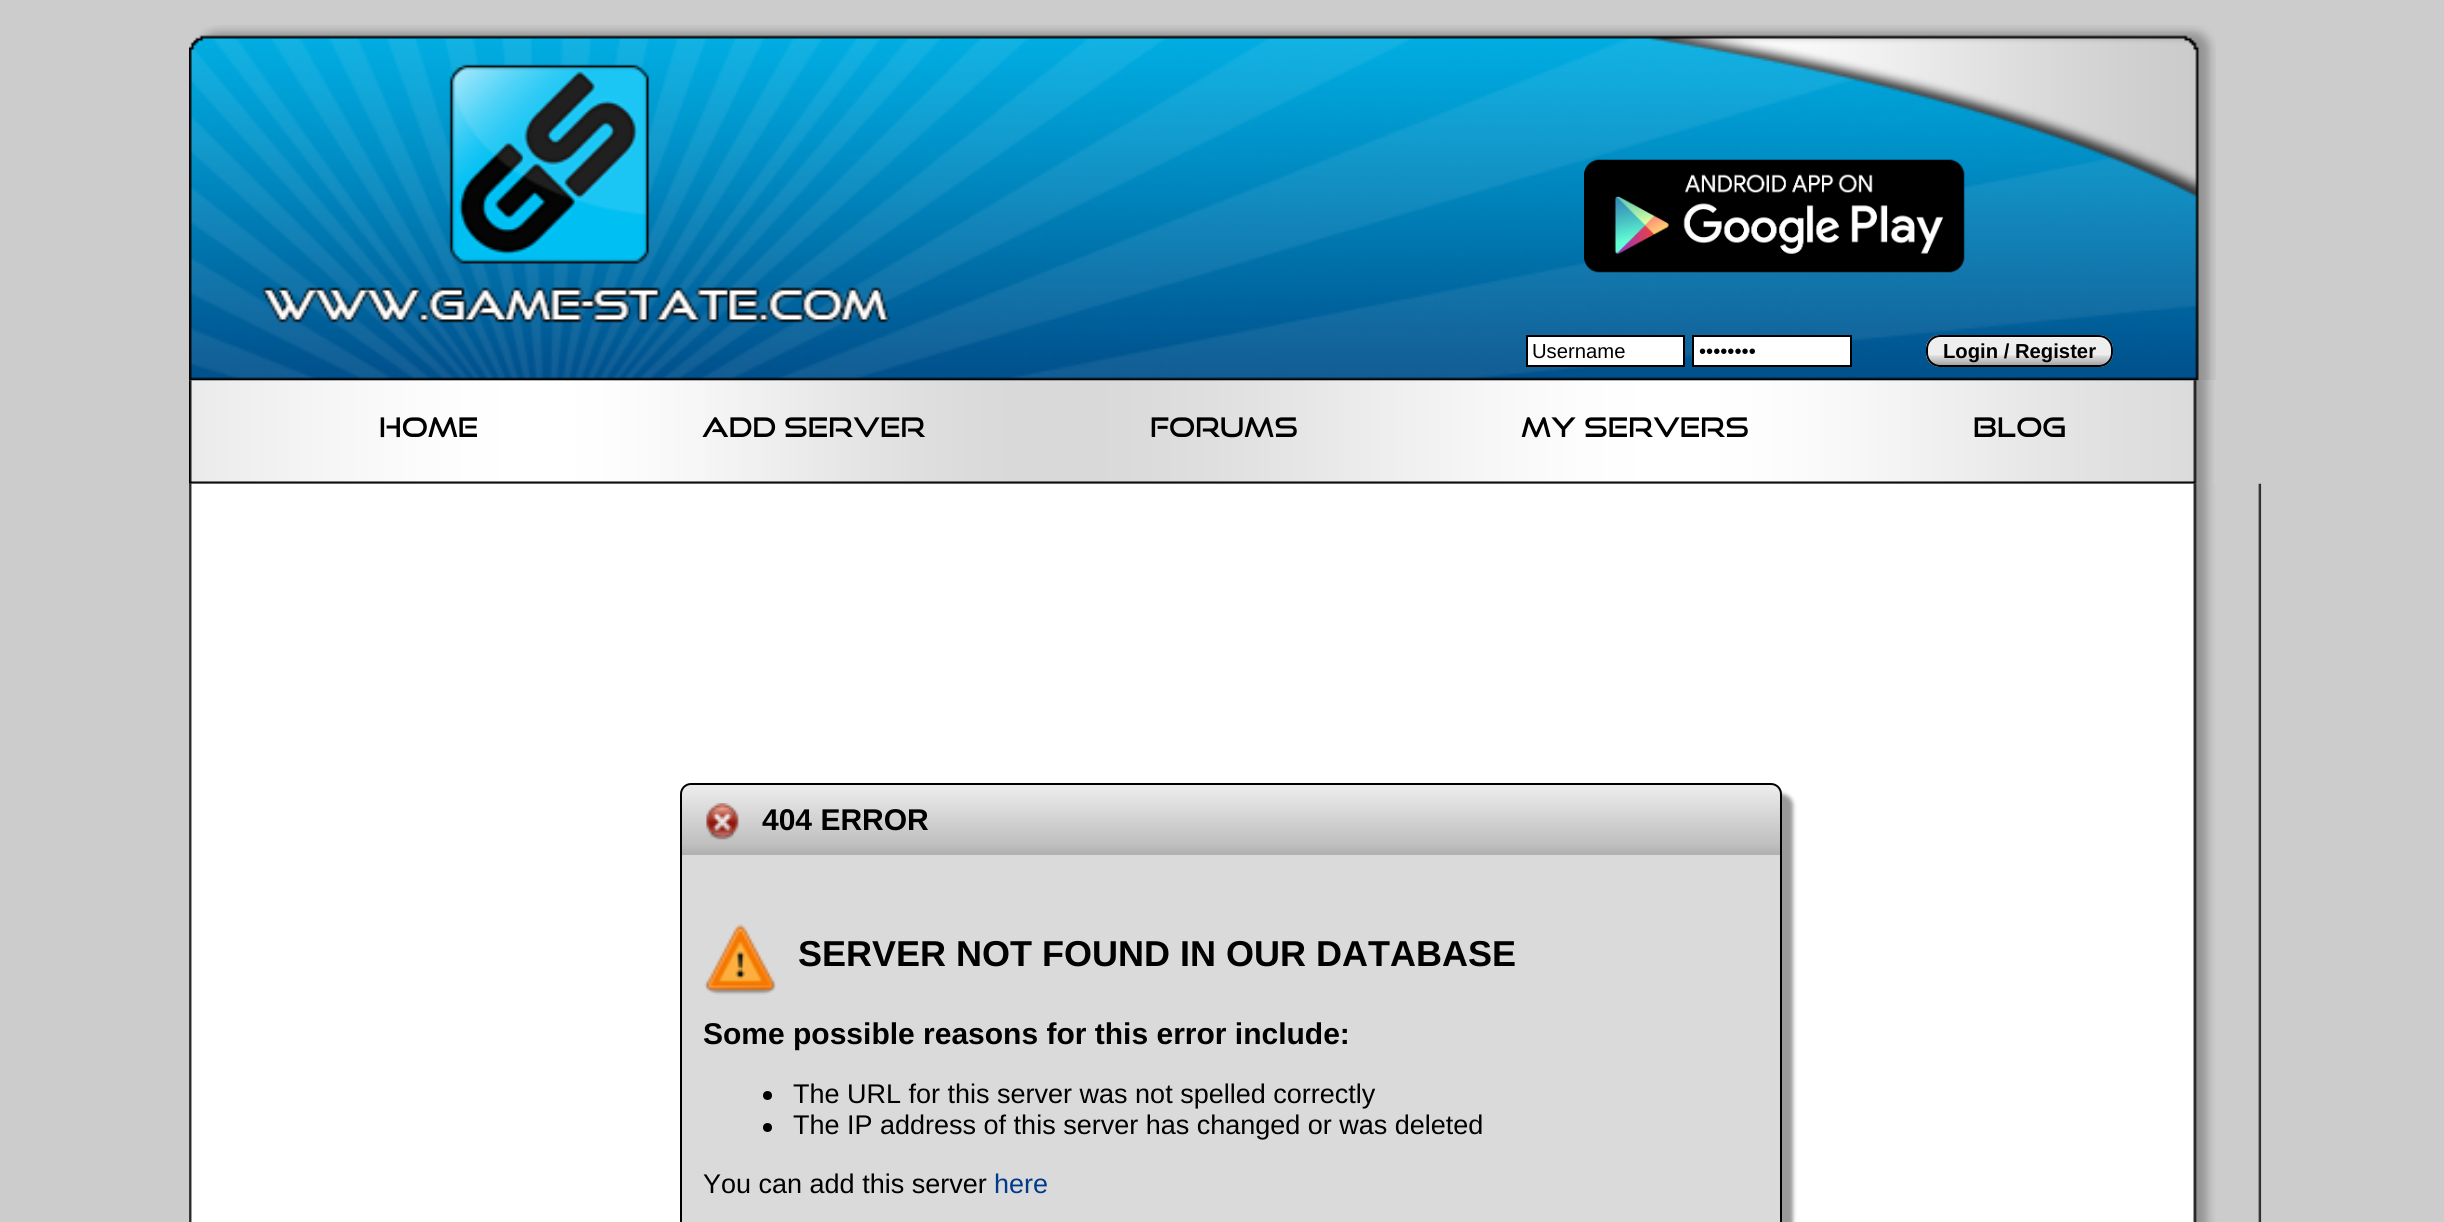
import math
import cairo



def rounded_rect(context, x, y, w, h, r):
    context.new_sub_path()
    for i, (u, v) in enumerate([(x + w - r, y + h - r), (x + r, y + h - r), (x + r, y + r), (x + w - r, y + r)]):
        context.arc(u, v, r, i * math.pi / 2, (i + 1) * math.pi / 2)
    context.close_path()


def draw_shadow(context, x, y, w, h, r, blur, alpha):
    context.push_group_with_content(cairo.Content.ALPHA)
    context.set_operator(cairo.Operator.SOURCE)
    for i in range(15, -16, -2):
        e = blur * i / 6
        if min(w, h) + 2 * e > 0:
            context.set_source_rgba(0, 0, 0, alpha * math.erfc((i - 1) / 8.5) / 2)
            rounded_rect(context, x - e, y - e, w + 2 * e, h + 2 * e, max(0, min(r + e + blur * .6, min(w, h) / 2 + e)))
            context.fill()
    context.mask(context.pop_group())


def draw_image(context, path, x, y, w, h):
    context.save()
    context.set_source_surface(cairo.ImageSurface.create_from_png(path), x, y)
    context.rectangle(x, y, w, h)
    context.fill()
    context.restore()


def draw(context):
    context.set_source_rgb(205 / 255, 204 / 255, 204 / 255)
    context.paint()
    draw_image(context, "images/4.png", 189, 380, 2025, 104)
    draw_image(context, "images/1.png", 189, 25, 2027, 356)
    draw_image(context, "images/2.png", 1584, 159, 381, 114)
    context.set_source_rgb(1, 1, 1)
    context.rectangle(1527, 336, 157, 30)
    context.fill_preserve()
    context.set_source_rgb(0, 0, 0)
    context.stroke()
    context.set_source_rgb(1, 1, 1)
    context.rectangle(1693, 336, 158, 30)
    context.fill_preserve()
    context.set_source_rgb(0, 0, 0)
    context.stroke()
    context.set_source_rgb(1, 1, 1)
    rounded_rect(context, 1926, 335, 187, 32, 14)
    context.fill()
    draw_image(context, "images/3.png", 1926, 337, 187, 30)
    rounded_rect(context, 1927, 336, 185, 30, 13)
    context.set_source_rgb(0, 0, 0)
    context.stroke()
    draw_image(context, "images/5.png", 189, 483, 2073, 739)
    context.set_source_rgb(153 / 255, 153 / 255, 153 / 255)
    draw_shadow(context, 691, 794, 1102, 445, 11, 2, 1)
    context.save()
    context.new_path()
    context.move_to(691, 783)
    context.line_to(1771, 783)
    context.curve_to(1777, 783, 1782, 788, 1782, 794)
    context.line_to(1782, 855)
    context.line_to(680, 855)
    context.line_to(680, 794)
    context.curve_to(680, 788, 685, 783, 691, 783)
    context.close_path()
    context.clip()
    gradient = cairo.LinearGradient(1231, 785, 1231, 855)
    gradient.add_color_stop_rgba(0, 237 / 255, 237 / 255, 237 / 255, 1)
    gradient.add_color_stop_rgba(0.85, 191 / 255, 191 / 255, 191 / 255, 1)
    gradient.add_color_stop_rgba(1, 175 / 255, 175 / 255, 175 / 255, 1)
    context.set_source(gradient)
    context.rectangle(680, 785, 1102, 70)
    context.fill()
    context.restore()
    context.set_source_rgb(0, 0, 0)
    context.set_fill_rule(cairo.FillRule.EVEN_ODD)
    context.new_path()
    context.move_to(691, 783)
    context.line_to(1771, 783)
    context.curve_to(1777, 783, 1782, 788, 1782, 794)
    context.line_to(1782, 855)
    context.line_to(680, 855)
    context.line_to(680, 794)
    context.curve_to(680, 788, 685, 783, 691, 783)
    context.close_path()
    context.move_to(691, 785)
    context.line_to(1771, 785)
    context.curve_to(1776, 785, 1780, 789, 1780, 794)
    context.line_to(1780, 855)
    context.line_to(682, 855)
    context.line_to(682, 794)
    context.curve_to(682, 789, 686, 785, 691, 785)
    context.close_path()
    context.fill()
    draw_image(context, "images/6.png", 706, 803, 33, 37)
    context.set_source_rgb(218 / 255, 218 / 255, 218 / 255)
    context.rectangle(682, 855, 1098, 367)
    context.fill()
    context.set_source_rgb(0, 0, 0)
    context.new_path()
    context.move_to(680, 855)
    context.line_to(1782, 855)
    context.line_to(1782, 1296)
    context.curve_to(1782, 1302, 1777, 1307, 1771, 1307)
    context.line_to(691, 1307)
    context.curve_to(685, 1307, 680, 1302, 680, 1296)
    context.close_path()
    context.move_to(682, 855)
    context.line_to(1780, 855)
    context.line_to(1780, 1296)
    context.curve_to(1780, 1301, 1776, 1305, 1771, 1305)
    context.line_to(691, 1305)
    context.curve_to(686, 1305, 682, 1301, 682, 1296)
    context.close_path()
    context.fill()
    draw_image(context, "images/7.png", 704, 924, 72, 71)
    context.arc(767.5, 1095.5, 4.5, 0, 2 * math.pi)
    context.fill()
    context.arc(767.5, 1127.5, 4.5, 0, 2 * math.pi)
    context.fill()
    context.select_font_face("Liberation Sans")
    context.set_font_size(20.25)
    context.move_to(1532, 358)
    context.show_text("Username")
    context.move_to(1699, 358)
    context.show_text("••••••••")
    context.select_font_face("Liberation Sans", cairo.FontSlant.NORMAL, cairo.FontWeight.BOLD)
    context.move_to(1943, 358)
    context.show_text("Login / Register")
    context.select_font_face("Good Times")
    context.set_font_size(27)
    context.move_to(379, 437)
    context.show_text("Home")
    context.move_to(702, 437)
    context.show_text("Add Server")
    context.move_to(1150, 437)
    context.show_text("Forums")
    context.move_to(1521, 437)
    context.show_text("My servers")
    context.move_to(1973, 437)
    context.show_text("Blog")
    context.select_font_face("Liberation Sans", cairo.FontSlant.NORMAL, cairo.FontWeight.BOLD)
    context.set_font_size(30)
    context.move_to(762, 830)
    context.show_text("404 ERROR")
    context.set_font_size(36)
    context.move_to(798, 966)
    context.show_text("SERVER NOT FOUND IN OUR DATABASE")
    context.set_font_size(30)
    context.move_to(703, 1044)
    context.show_text("Some possible reasons for this error include:")
    context.select_font_face("Liberation Sans")
    context.set_font_size(27)
    context.move_to(793, 1103)
    context.show_text("The URL for this server was not spelled correctly")
    context.move_to(793, 1134)
    context.show_text("The IP address of this server has changed or was deleted")
    context.move_to(703, 1193)
    context.show_text("You can add this server")
    context.set_source_rgb(0, 58 / 255, 138 / 255)
    context.move_to(994, 1193)
    context.show_text("here")


surface = cairo.ImageSurface(cairo.Format.RGB24, 2444, 1222)
context = cairo.Context(surface)
options = cairo.FontOptions()
options.set_hint_metrics(cairo.HintMetrics.OFF)
options.set_hint_style(cairo.HintStyle.NONE)
context.set_font_options(options)
context.set_miter_limit(4)
draw(context)
surface.write_to_png("out.png")
